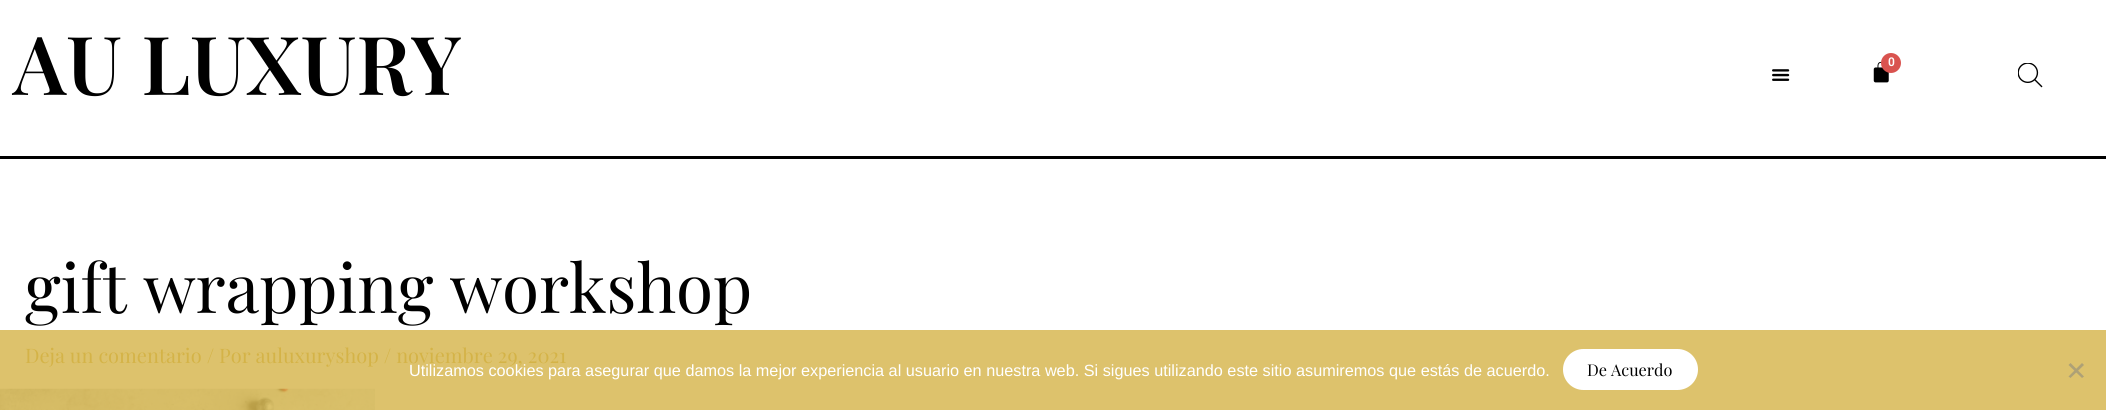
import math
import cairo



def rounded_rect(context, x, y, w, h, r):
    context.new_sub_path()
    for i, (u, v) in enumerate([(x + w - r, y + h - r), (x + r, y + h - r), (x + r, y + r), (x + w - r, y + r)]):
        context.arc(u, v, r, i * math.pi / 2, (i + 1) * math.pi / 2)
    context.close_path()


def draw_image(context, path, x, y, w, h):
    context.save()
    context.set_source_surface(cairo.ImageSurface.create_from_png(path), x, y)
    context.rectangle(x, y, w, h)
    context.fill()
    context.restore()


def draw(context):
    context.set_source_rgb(1, 1, 1)
    context.paint()
    context.set_source_rgb(221 / 255, 194 / 255, 108 / 255)
    context.rectangle(0, 330, 2106, 80)
    context.fill()
    draw_image(context, "images/1.png", 1873, 61, 16, 22)
    context.set_source_rgb(217 / 255, 83 / 255, 79 / 255)
    context.arc(1891, 63, 10, 0, 2 * math.pi)
    context.fill()
    draw_image(context, "images/2.png", 1772, 69, 18, 12)
    draw_image(context, "images/3.png", 2018, 63, 25, 25)
    context.set_source_rgb(0, 0, 0)
    context.rectangle(0, 156, 2106, 3)
    context.fill()
    draw_image(context, "images/4.png", 0, 388, 375, 22)
    context.set_source_rgb(1, 1, 1)
    rounded_rect(context, 1563, 349, 135, 41, 20.5)
    context.fill()
    context.set_source_rgb(174 / 255, 161 / 255, 118 / 255)
    context.new_path()
    context.move_to(2082, 363)
    context.line_to(2084, 365)
    context.line_to(2070.5, 378)
    context.line_to(2068.5, 376.5)
    context.close_path()
    context.fill()
    context.new_path()
    context.move_to(2068.5, 365)
    context.line_to(2070.5, 363)
    context.line_to(2084, 376.5)
    context.line_to(2082, 378)
    context.close_path()
    context.fill()
    context.select_font_face("Playfair Display SemiBold")
    context.set_font_size(81.25)
    context.set_source_rgb(0, 0, 0)
    context.move_to(13, 95)
    context.show_text("AU LUXURY")
    context.select_font_face("Roboto SemiBold")
    context.set_font_size(12)
    context.set_source_rgb(1, 1, 1)
    context.move_to(1888, 66)
    context.show_text("0")
    context.select_font_face("Playfair Display")
    context.set_font_size(67.5)
    context.set_source_rgb(0, 0, 0)
    context.move_to(25, 313)
    context.show_text("gift wrapping workshop")
    context.set_font_size(20)
    context.set_source_rgb(212 / 255, 179 / 255, 71 / 255)
    context.move_to(25, 363)
    context.show_text("Deja un comentario / Por auluxuryshop / noviembre 29, 2021")
    context.select_font_face("Liberation Sans")
    context.set_font_size(16.25)
    context.set_source_rgb(1, 1, 1)
    context.move_to(409, 376)
    context.show_text("Utilizamos cookies para asegurar que damos la mejor experiencia al usuario en nuestra web. Si sigues utilizando este sitio asumiremos que estás de acuerdo.")
    context.select_font_face("Playfair Display")
    context.set_source_rgb(0, 0, 0)
    context.move_to(1587, 376)
    context.show_text("De Acuerdo")


surface = cairo.ImageSurface(cairo.Format.RGB24, 2106, 410)
context = cairo.Context(surface)
options = cairo.FontOptions()
options.set_hint_metrics(cairo.HintMetrics.OFF)
options.set_hint_style(cairo.HintStyle.NONE)
context.set_font_options(options)
context.set_miter_limit(4)
draw(context)
surface.write_to_png("out.png")
